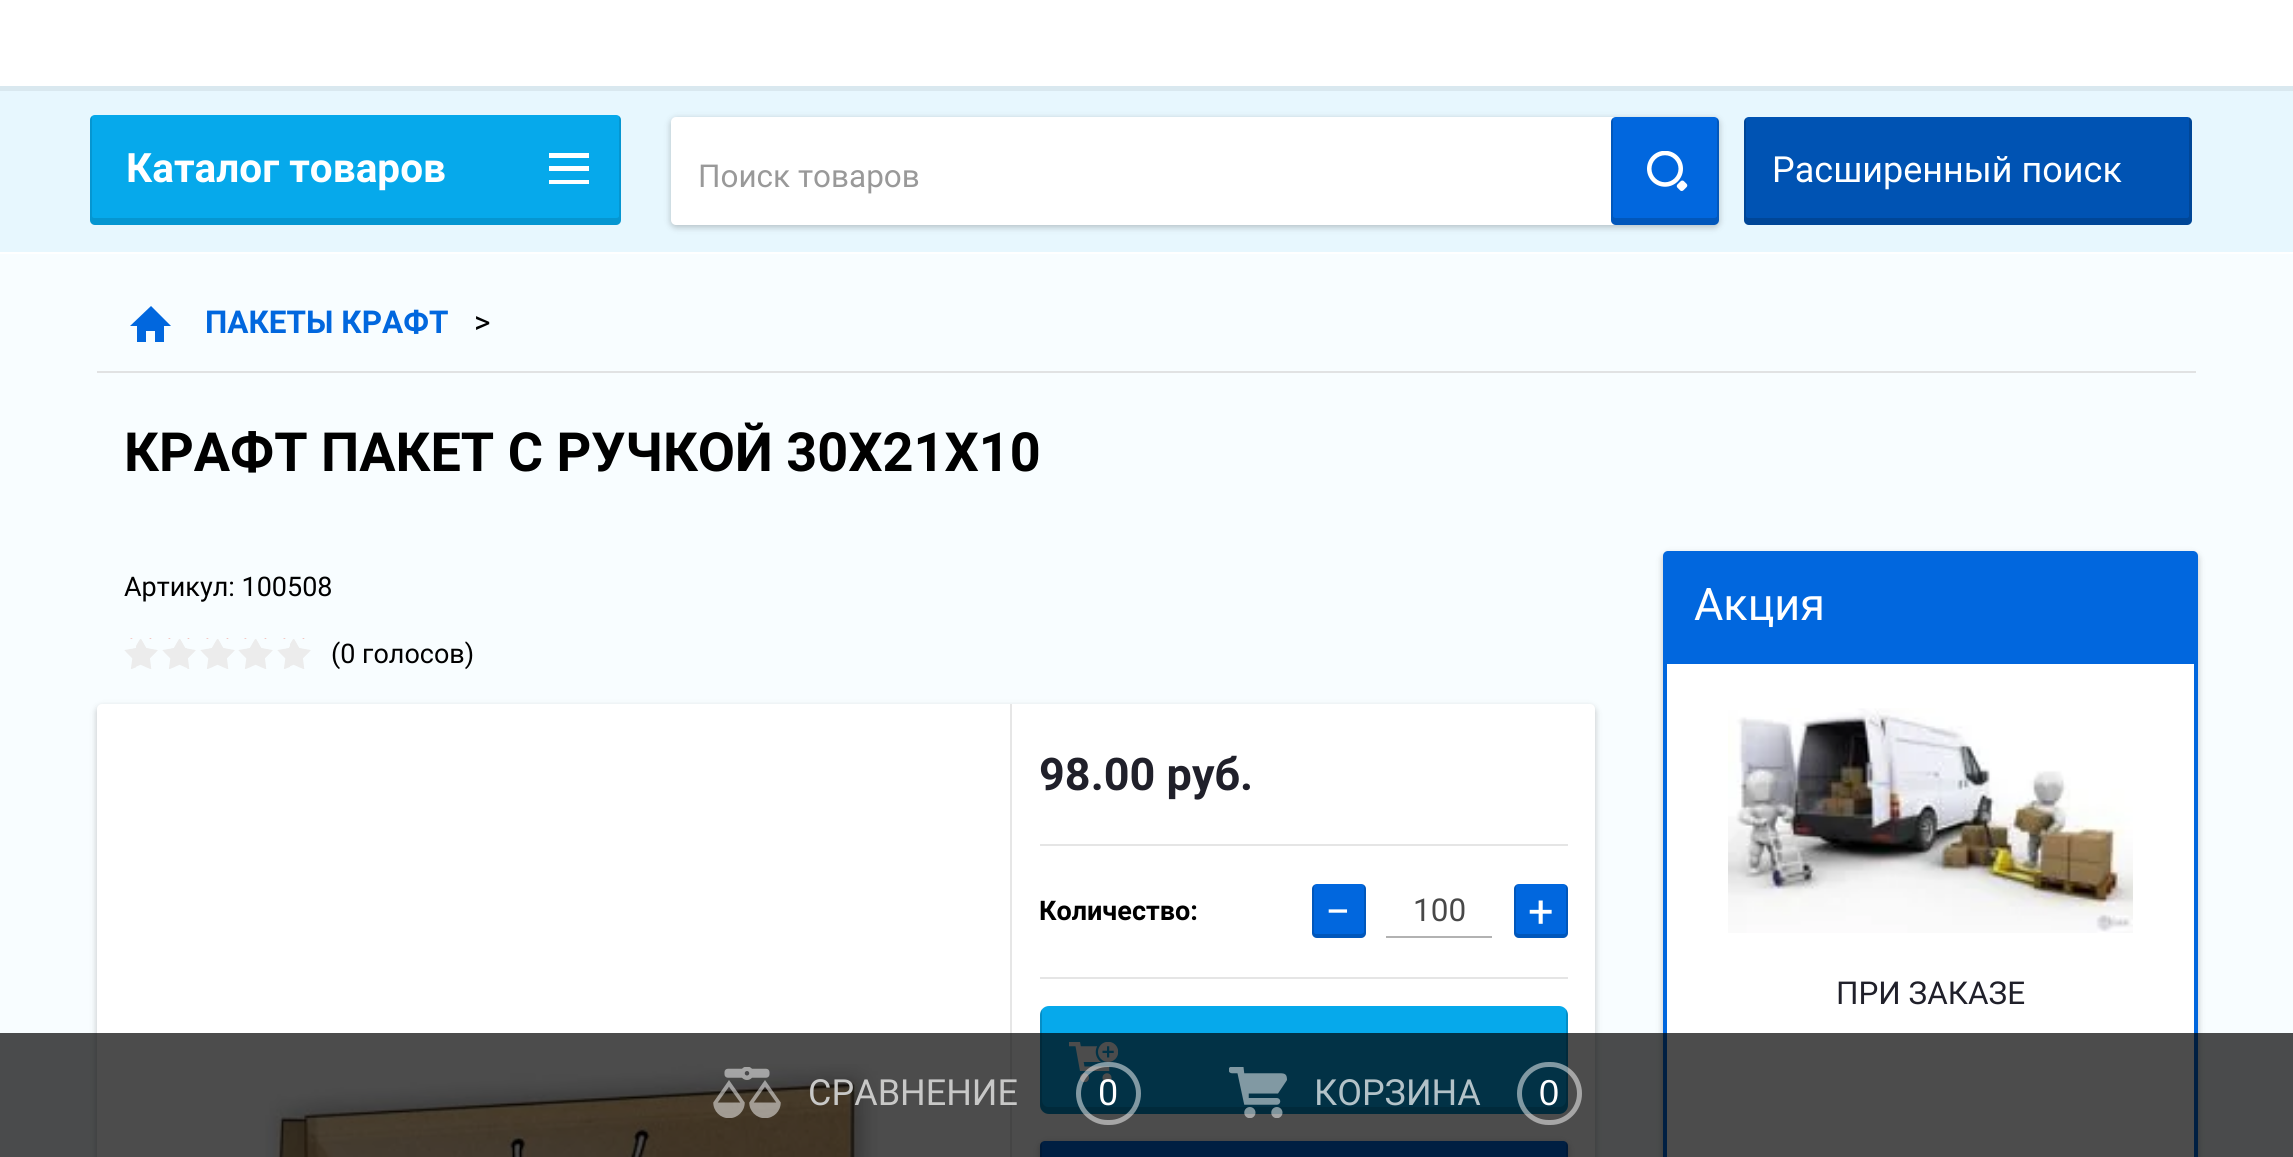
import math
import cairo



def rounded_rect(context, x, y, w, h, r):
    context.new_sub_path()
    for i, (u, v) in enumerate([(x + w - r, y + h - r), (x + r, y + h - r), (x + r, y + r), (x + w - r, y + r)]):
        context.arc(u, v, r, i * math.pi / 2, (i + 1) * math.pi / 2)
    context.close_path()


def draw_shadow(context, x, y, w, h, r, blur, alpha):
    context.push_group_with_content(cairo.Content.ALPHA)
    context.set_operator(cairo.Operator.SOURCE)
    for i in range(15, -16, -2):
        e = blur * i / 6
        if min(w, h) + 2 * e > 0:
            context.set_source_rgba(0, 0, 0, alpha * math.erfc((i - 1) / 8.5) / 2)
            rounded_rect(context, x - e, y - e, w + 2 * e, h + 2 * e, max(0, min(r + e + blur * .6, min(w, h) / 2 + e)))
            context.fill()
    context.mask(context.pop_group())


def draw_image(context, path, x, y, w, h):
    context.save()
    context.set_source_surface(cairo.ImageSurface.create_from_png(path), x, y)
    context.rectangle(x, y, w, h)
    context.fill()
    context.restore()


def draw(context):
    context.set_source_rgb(248 / 255, 253 / 255, 1)
    context.paint()
    context.set_source_rgb(1, 1, 1)
    context.rectangle(0, 0, 2293, 86)
    context.fill()
    context.rectangle(0, 252, 2293, 2)
    context.fill()
    context.set_source_rgb(231 / 255, 247 / 255, 254 / 255)
    context.rectangle(0, 91, 2293, 161)
    context.fill()
    context.set_source_rgb(217 / 255, 232 / 255, 239 / 255)
    context.rectangle(0, 86, 2293, 5)
    context.fill()
    context.set_source_rgb(6 / 255, 169 / 255, 235 / 255)
    rounded_rect(context, 90, 115, 531, 110, 5)
    context.fill()
    context.set_source_rgba(0, 0, 0, 0.11)
    context.new_path()
    context.move_to(92, 116)
    context.curve_to(91, 117, 90, 118, 90, 120)
    context.line_to(90, 220)
    context.curve_to(90, 223, 92, 225, 95, 225)
    context.line_to(616, 225)
    context.curve_to(619, 225, 621, 223, 621, 220)
    context.line_to(621, 120)
    context.curve_to(621, 118, 620, 117, 619, 116)
    context.line_to(619, 216)
    context.curve_to(619, 217, 618, 218, 616, 218)
    context.line_to(94, 218)
    context.curve_to(93, 218, 92, 217, 92, 216)
    context.close_path()
    context.fill()
    context.set_source_rgb(1, 1, 1)
    context.set_fill_rule(cairo.FillRule.EVEN_ODD)
    context.new_path()
    context.move_to(549, 184)
    context.line_to(549, 180)
    context.line_to(589, 180)
    context.line_to(589, 184)
    context.close_path()
    context.move_to(549, 166)
    context.line_to(589, 166)
    context.line_to(589, 171)
    context.line_to(549, 171)
    context.close_path()
    context.move_to(549, 153)
    context.line_to(589, 153)
    context.line_to(589, 158)
    context.line_to(549, 158)
    context.close_path()
    context.fill()
    context.set_source_rgb(0, 0, 0)
    draw_shadow(context, 1663, 554, 535, 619, 5, 3.5, 0.24)
    context.set_source_rgb(1 / 255, 103 / 255, 222 / 255)
    rounded_rect(context, 1663, 551, 535, 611, 5)
    context.fill()
    context.set_source_rgb(1, 1, 1)
    context.rectangle(1667, 664, 527, 493)
    context.fill()
    draw_image(context, "images/1.png", 1728, 708, 405, 225)
    context.set_source_rgb(0, 0, 0)
    draw_shadow(context, 671, 119, 1048, 108, 5, 3.5, 0.24)
    context.set_source_rgb(1, 1, 1)
    rounded_rect(context, 671, 117, 1048, 108, 5)
    context.fill()
    context.set_source_rgb(1 / 255, 103 / 255, 222 / 255)
    rounded_rect(context, 1611, 117, 108, 108, 5)
    context.fill()
    context.set_source_rgba(0, 0, 0, 0.16)
    context.set_fill_rule(cairo.FillRule.WINDING)
    context.new_path()
    context.move_to(1613, 118)
    context.curve_to(1612, 119, 1611, 120, 1611, 122)
    context.line_to(1611, 220)
    context.curve_to(1611, 223, 1613, 225, 1616, 225)
    context.line_to(1714, 225)
    context.curve_to(1717, 225, 1719, 223, 1719, 220)
    context.line_to(1719, 122)
    context.curve_to(1719, 120, 1718, 119, 1717, 118)
    context.line_to(1717, 216)
    context.curve_to(1717, 217, 1716, 218, 1714, 218)
    context.line_to(1616, 218)
    context.curve_to(1614, 218, 1613, 217, 1613, 216)
    context.close_path()
    context.fill()
    draw_image(context, "images/2.png", 1647, 151, 41, 40)
    context.set_source_rgb(0, 83 / 255, 179 / 255)
    rounded_rect(context, 1744, 117, 448, 108, 5)
    context.fill()
    context.set_source_rgba(0, 0, 0, 0.16)
    context.new_path()
    context.move_to(1746, 118)
    context.curve_to(1745, 119, 1744, 120, 1744, 122)
    context.line_to(1744, 220)
    context.curve_to(1744, 223, 1746, 225, 1749, 225)
    context.line_to(2187, 225)
    context.curve_to(2190, 225, 2192, 223, 2192, 220)
    context.line_to(2192, 122)
    context.curve_to(2192, 120, 2191, 118, 2189, 117)
    context.line_to(2189, 216)
    context.curve_to(2189, 217, 2188, 218, 2187, 218)
    context.line_to(1748, 218)
    context.curve_to(1747, 218, 1746, 217, 1746, 216)
    context.close_path()
    context.fill()
    context.set_source_rgb(225 / 255, 226 / 255, 227 / 255)
    context.rectangle(97, 371, 2099, 2)
    context.fill()
    context.set_source_rgb(1 / 255, 103 / 255, 222 / 255)
    context.set_fill_rule(cairo.FillRule.EVEN_ODD)
    context.new_path()
    context.move_to(164, 326)
    context.line_to(164, 342)
    context.line_to(155, 342)
    context.line_to(155, 331)
    context.line_to(146, 331)
    context.line_to(146, 342)
    context.line_to(137, 342)
    context.line_to(137, 326)
    context.line_to(130, 326)
    context.line_to(151, 306)
    context.line_to(171, 326)
    context.close_path()
    context.fill()
    draw_image(context, "images/3.png", 124, 638, 187, 31)
    context.set_source_rgb(0, 0, 0)
    draw_shadow(context, 97, 707, 1498, 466, 5, 3.5, 0.24)
    context.set_source_rgb(1, 1, 1)
    rounded_rect(context, 97, 704, 1498, 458, 5)
    context.fill()
    context.set_source_rgb(230 / 255, 230 / 255, 230 / 255)
    context.set_fill_rule(cairo.FillRule.WINDING)
    context.new_path()
    context.move_to(1010, 704)
    context.line_to(1010, 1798)
    context.line_to(1593, 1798)
    context.line_to(1012, 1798)
    context.line_to(1012, 704)
    context.line_to(1593, 704)
    context.close_path()
    context.fill()
    context.set_source_rgb(229 / 255, 229 / 255, 229 / 255)
    context.rectangle(1040, 844, 528, 2)
    context.fill()
    context.rectangle(1040, 977, 528, 2)
    context.fill()
    context.set_source_rgb(1 / 255, 103 / 255, 222 / 255)
    rounded_rect(context, 1312, 884, 54, 54, 5)
    context.fill()
    context.set_source_rgba(0, 0, 0, 0.16)
    context.new_path()
    context.move_to(1366, 889)
    context.curve_to(1366, 886, 1364, 884, 1361, 884)
    context.curve_to(1362, 884, 1364, 885, 1364, 886)
    context.line_to(1364, 932)
    context.curve_to(1364, 933, 1362, 934, 1361, 934)
    context.line_to(1316, 934)
    context.curve_to(1315, 934, 1314, 933, 1314, 932)
    context.line_to(1314, 886)
    context.line_to(1315, 885)
    context.curve_to(1313, 885, 1312, 887, 1312, 889)
    context.line_to(1312, 933)
    context.curve_to(1312, 936, 1314, 938, 1317, 938)
    context.line_to(1361, 938)
    context.curve_to(1364, 938, 1366, 936, 1366, 933)
    context.close_path()
    context.fill()
    context.set_source_rgb(178 / 255, 178 / 255, 178 / 255)
    context.rectangle(1386, 936, 106, 2)
    context.fill()
    context.set_source_rgb(1 / 255, 103 / 255, 222 / 255)
    rounded_rect(context, 1514, 884, 54, 54, 5)
    context.fill()
    context.set_source_rgba(0, 0, 0, 0.16)
    context.new_path()
    context.move_to(1519, 884)
    context.curve_to(1516, 884, 1514, 886, 1514, 889)
    context.line_to(1514, 933)
    context.curve_to(1514, 936, 1516, 938, 1519, 938)
    context.line_to(1563, 938)
    context.curve_to(1566, 938, 1568, 936, 1568, 933)
    context.line_to(1568, 889)
    context.curve_to(1568, 887, 1567, 885, 1565, 885)
    context.line_to(1566, 886)
    context.line_to(1566, 932)
    context.curve_to(1566, 933, 1565, 934, 1564, 934)
    context.line_to(1519, 934)
    context.curve_to(1518, 934, 1516, 933, 1516, 932)
    context.line_to(1516, 886)
    context.curve_to(1516, 885, 1518, 884, 1519, 884)
    context.close_path()
    context.fill()
    context.set_source_rgb(6 / 255, 169 / 255, 235 / 255)
    rounded_rect(context, 1040, 1006, 528, 108, 9)
    context.fill()
    context.set_source_rgba(0, 0, 0, 0.16)
    context.new_path()
    context.move_to(1042, 1009)
    context.curve_to(1041, 1011, 1040, 1013, 1040, 1015)
    context.line_to(1040, 1105)
    context.curve_to(1040, 1110, 1044, 1114, 1049, 1114)
    context.line_to(1559, 1114)
    context.curve_to(1564, 1114, 1568, 1110, 1568, 1105)
    context.line_to(1568, 1015)
    context.curve_to(1568, 1013, 1567, 1011, 1566, 1009)
    context.line_to(1566, 1100)
    context.curve_to(1566, 1104, 1563, 1107, 1559, 1107)
    context.line_to(1048, 1107)
    context.curve_to(1045, 1107, 1042, 1104, 1042, 1100)
    context.close_path()
    context.fill()
    draw_image(context, "images/4.png", 1069, 1042, 49, 40)
    context.set_source_rgb(0, 0, 0)
    draw_shadow(context, 1040, 1143, 528, 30, 5, 3.5, 0.24)
    context.set_source_rgb(1 / 255, 103 / 255, 222 / 255)
    rounded_rect(context, 1040, 1141, 528, 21, 5)
    context.fill()
    context.set_source_rgba(0, 0, 0, 0.16)
    context.new_path()
    context.move_to(1042, 1142)
    context.curve_to(1041, 1143, 1040, 1144, 1040, 1146)
    context.line_to(1040, 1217)
    context.curve_to(1040, 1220, 1042, 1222, 1045, 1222)
    context.line_to(1563, 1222)
    context.curve_to(1566, 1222, 1568, 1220, 1568, 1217)
    context.line_to(1568, 1146)
    context.curve_to(1568, 1144, 1567, 1143, 1566, 1142)
    context.line_to(1566, 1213)
    context.curve_to(1566, 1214, 1565, 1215, 1564, 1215)
    context.line_to(1044, 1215)
    context.curve_to(1043, 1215, 1042, 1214, 1042, 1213)
    context.close_path()
    context.fill()
    draw_image(context, "images/5.png", 265, 1064, 613, 93)
    context.set_source_rgba(0, 0, 0, 0.7)
    context.rectangle(0, 1033, 2293, 124)
    context.fill()
    draw_image(context, "images/6.png", 713, 1067, 68, 51)
    rounded_rect(context, 1078.5, 1064.5, 60, 58, 29)
    context.set_source_rgba(1, 1, 1, 0.5)
    context.set_line_width(5)
    context.stroke()
    draw_image(context, "images/7.png", 1229, 1067, 58, 51)
    rounded_rect(context, 1519.5, 1064.5, 60, 58, 29)
    context.stroke()
    context.select_font_face("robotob", cairo.FontSlant.NORMAL, cairo.FontWeight.BOLD)
    context.set_font_size(40.5)
    context.set_source_rgb(1, 1, 1)
    context.move_to(126, 182)
    context.show_text("Каталог товаров")
    context.select_font_face("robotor")
    context.set_font_size(45)
    context.move_to(1694, 620)
    context.show_text("Акция")
    context.set_font_size(31.5)
    context.set_source_rgb(32 / 255, 32 / 255, 42 / 255)
    context.move_to(1836, 1004)
    context.show_text("ПРИ ЗАКАЗЕ")
    context.set_source_rgb(153 / 255, 153 / 255, 153 / 255)
    context.move_to(698, 187)
    context.show_text("Поиск товаров")
    context.set_font_size(36)
    context.set_source_rgb(1, 1, 1)
    context.move_to(1772, 182)
    context.show_text("Расширенный поиск")
    context.select_font_face("robotob", cairo.FontSlant.NORMAL, cairo.FontWeight.BOLD)
    context.set_font_size(31.5)
    context.set_source_rgb(1 / 255, 103 / 255, 222 / 255)
    context.move_to(205, 333)
    context.show_text("ПАКЕТЫ КРАФТ")
    context.select_font_face("robotor")
    context.set_source_rgb(0, 0, 0)
    context.move_to(474, 333)
    context.show_text(">")
    context.select_font_face("robotob", cairo.FontSlant.NORMAL, cairo.FontWeight.BOLD)
    context.set_font_size(54)
    context.move_to(124, 471)
    context.show_text("КРАФТ ПАКЕТ С РУЧКОЙ 30Х21Х10")
    context.select_font_face("robotor")
    context.set_font_size(27)
    context.move_to(124, 596)
    context.show_text("Артикул: 100508")
    context.move_to(331, 663)
    context.show_text("(0 голосов)")
    context.select_font_face("robotob", cairo.FontSlant.NORMAL, cairo.FontWeight.BOLD)
    context.set_font_size(45)
    context.set_source_rgb(32 / 255, 32 / 255, 42 / 255)
    context.move_to(1039, 790)
    context.show_text("98.00 руб.")
    context.set_font_size(27)
    context.set_source_rgb(0, 0, 0)
    context.move_to(1039, 920)
    context.show_text("Количество:")
    context.select_font_face("robotor")
    context.set_font_size(45)
    context.set_source_rgb(1, 1, 1)
    context.move_to(1325, 927)
    context.show_text("−")
    context.set_font_size(31.5)
    context.set_source_rgb(72 / 255, 72 / 255, 72 / 255)
    context.move_to(1413, 921)
    context.show_text("100")
    context.set_font_size(45)
    context.set_source_rgb(1, 1, 1)
    context.move_to(1528, 927)
    context.show_text("+")
    context.set_font_size(36)
    context.set_source_rgb(200 / 255, 200 / 255, 199 / 255)
    context.move_to(808, 1105)
    context.show_text("СРАВНЕНИЕ")
    context.set_source_rgb(1, 1, 1)
    context.move_to(1098, 1105)
    context.show_text("0")
    context.set_source_rgb(179 / 255, 194 / 255, 200 / 255)
    context.move_to(1314, 1105)
    context.show_text("КОРЗИНА")
    context.select_font_face("Liberation Sans")
    context.set_source_rgb(1, 1, 1)
    context.move_to(1539, 1105)
    context.show_text("0")


surface = cairo.ImageSurface(cairo.Format.RGB24, 2293, 1157)
context = cairo.Context(surface)
options = cairo.FontOptions()
options.set_hint_metrics(cairo.HintMetrics.OFF)
options.set_hint_style(cairo.HintStyle.NONE)
context.set_font_options(options)
context.set_miter_limit(4)
draw(context)
surface.write_to_png("out.png")
